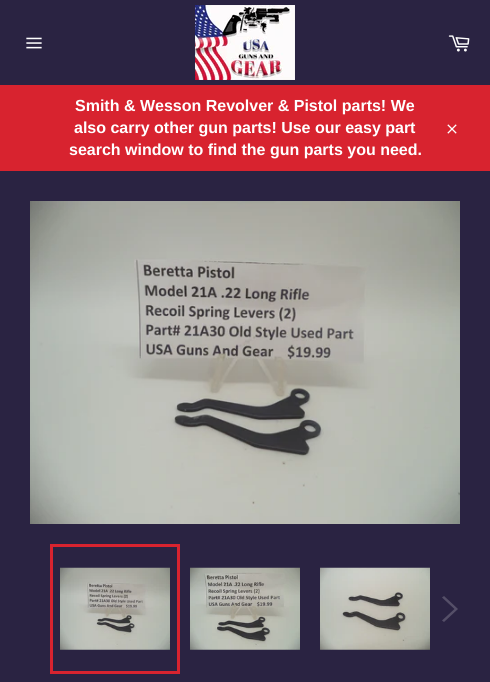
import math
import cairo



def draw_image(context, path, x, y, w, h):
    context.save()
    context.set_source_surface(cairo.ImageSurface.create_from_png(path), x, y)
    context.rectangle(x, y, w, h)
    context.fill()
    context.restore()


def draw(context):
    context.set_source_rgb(42 / 255, 35 / 255, 66 / 255)
    context.paint()
    draw_image(context, "images/1.png", 26, 37, 16, 12)
    draw_image(context, "images/2.png", 195, 5, 100, 75)
    draw_image(context, "images/3.png", 448, 35, 22, 17)
    context.set_source_rgb(216 / 255, 35 / 255, 47 / 255)
    context.rectangle(0, 85, 490, 86)
    context.fill()
    draw_image(context, "images/4.png", 447, 124, 10, 10)
    draw_image(context, "images/5.png", 30, 201, 430, 323)
    draw_image(context, "images/6.png", 60, 567, 110, 83)
    context.rectangle(51.5, 545.5, 127, 127)
    context.set_line_width(3)
    context.stroke()
    draw_image(context, "images/7.png", 190, 567, 110, 83)
    draw_image(context, "images/8.png", 320, 567, 110, 83)
    context.set_source_rgb(85 / 255, 79 / 255, 104 / 255)
    context.new_path()
    context.move_to(442, 597.5)
    context.line_to(444, 596)
    context.line_to(458, 609)
    context.line_to(444, 622)
    context.line_to(442, 620.5)
    context.line_to(454.5, 609)
    context.close_path()
    context.fill()
    context.select_font_face("Arimo", cairo.FontSlant.NORMAL, cairo.FontWeight.BOLD)
    context.set_font_size(16)
    context.set_source_rgb(1, 1, 1)
    context.move_to(75, 111)
    context.show_text("Smith & Wesson Revolver & Pistol parts! We")
    context.move_to(74, 133)
    context.show_text("also carry other gun parts! Use our easy part")
    context.move_to(69, 155)
    context.show_text("search window to find the gun parts you need.")


surface = cairo.ImageSurface(cairo.Format.RGB24, 490, 682)
context = cairo.Context(surface)
options = cairo.FontOptions()
options.set_hint_metrics(cairo.HintMetrics.OFF)
options.set_hint_style(cairo.HintStyle.NONE)
context.set_font_options(options)
context.set_miter_limit(4)
draw(context)
surface.write_to_png("out.png")
